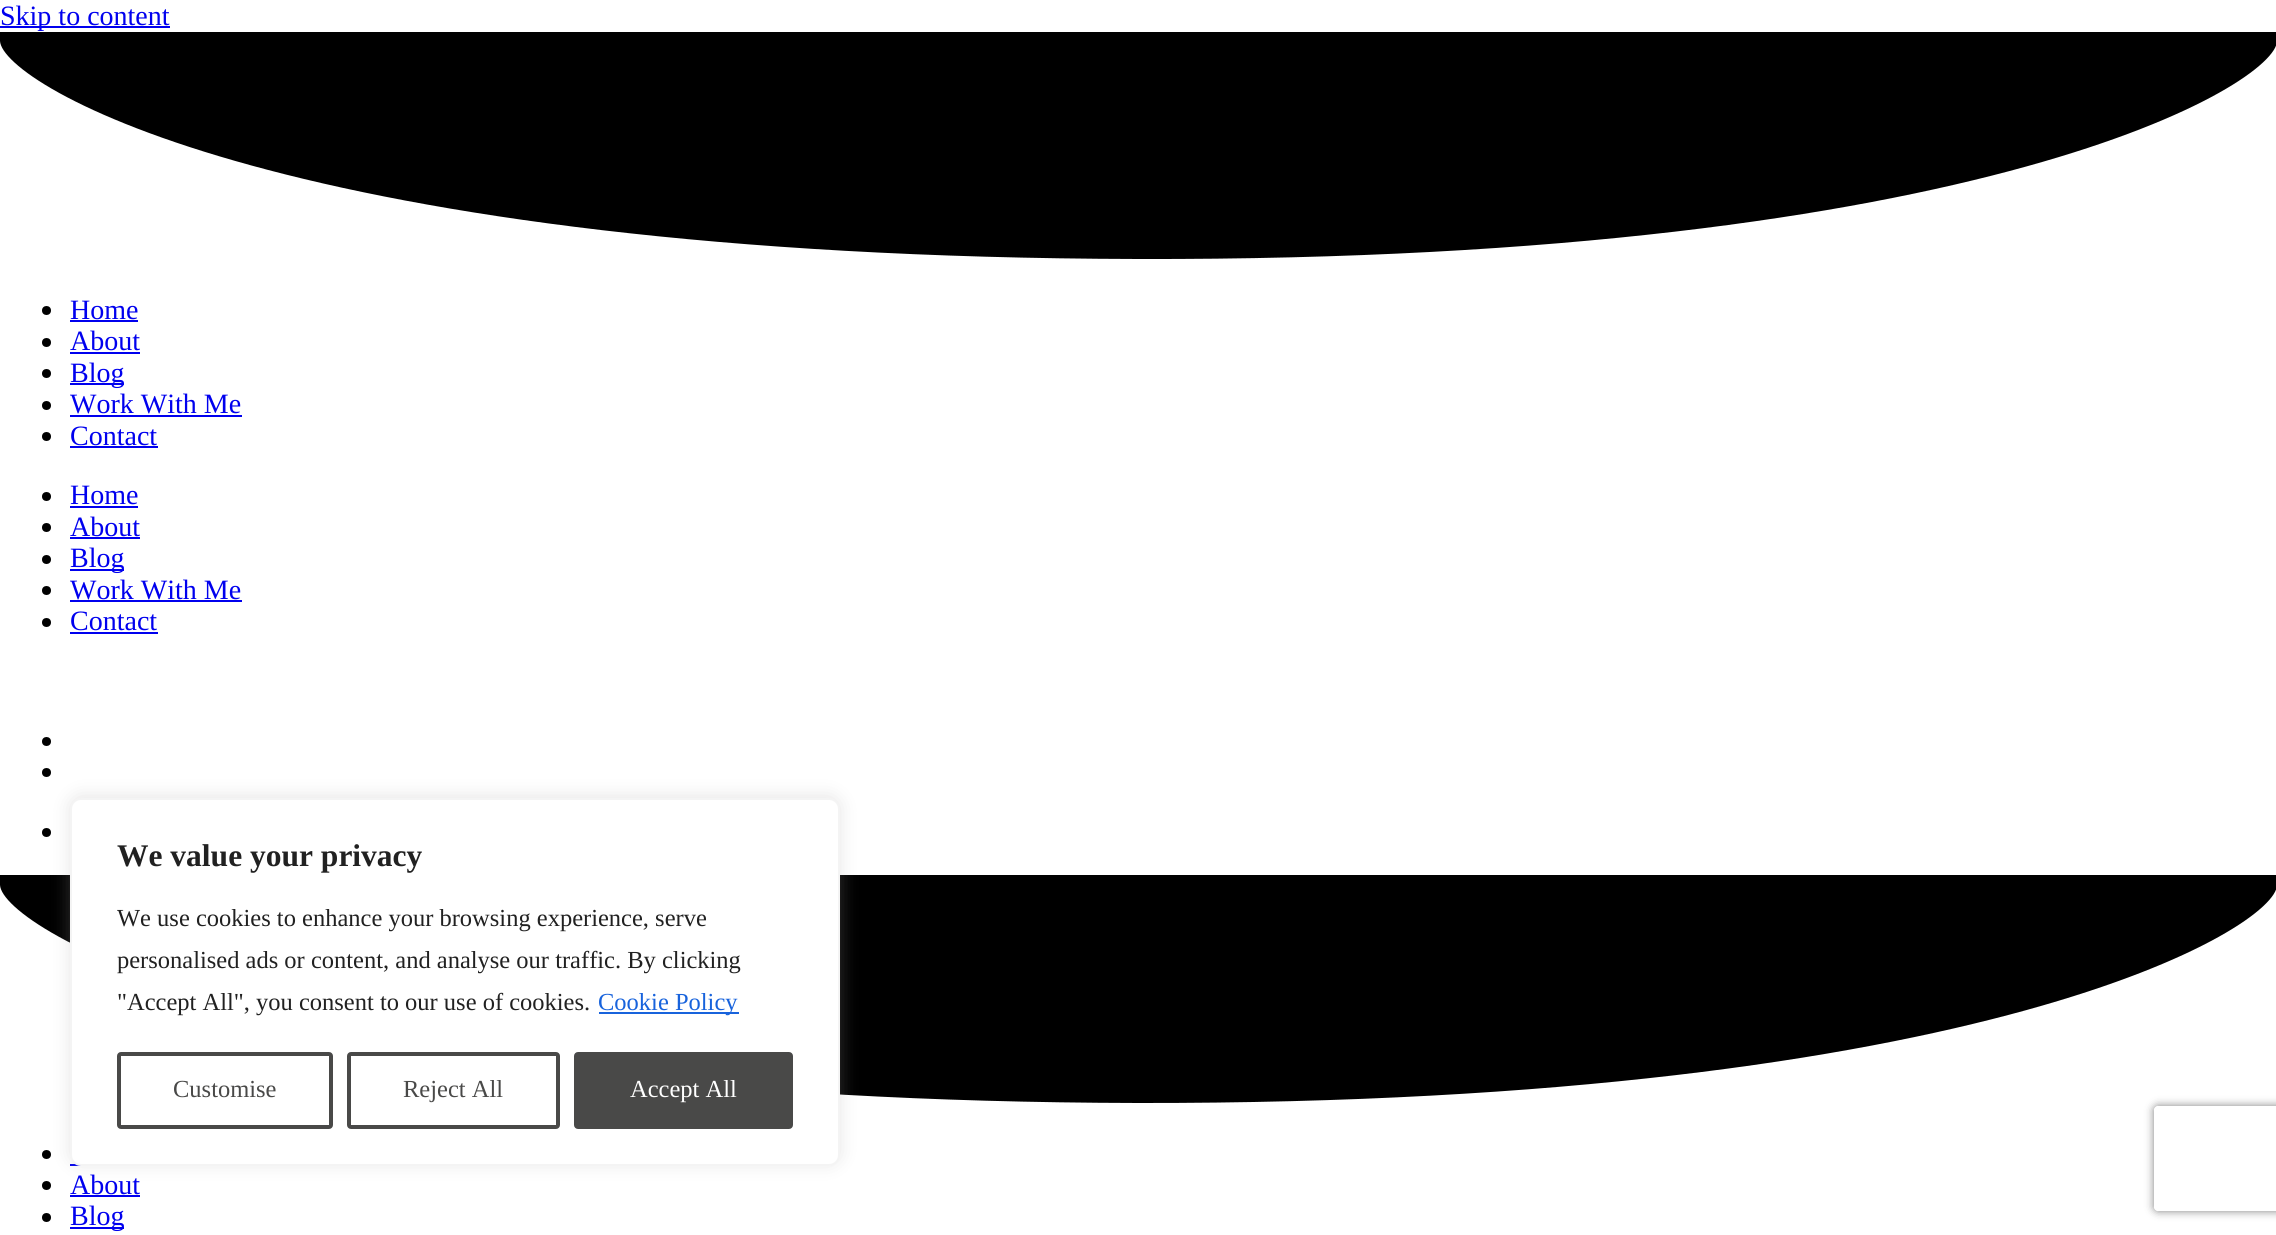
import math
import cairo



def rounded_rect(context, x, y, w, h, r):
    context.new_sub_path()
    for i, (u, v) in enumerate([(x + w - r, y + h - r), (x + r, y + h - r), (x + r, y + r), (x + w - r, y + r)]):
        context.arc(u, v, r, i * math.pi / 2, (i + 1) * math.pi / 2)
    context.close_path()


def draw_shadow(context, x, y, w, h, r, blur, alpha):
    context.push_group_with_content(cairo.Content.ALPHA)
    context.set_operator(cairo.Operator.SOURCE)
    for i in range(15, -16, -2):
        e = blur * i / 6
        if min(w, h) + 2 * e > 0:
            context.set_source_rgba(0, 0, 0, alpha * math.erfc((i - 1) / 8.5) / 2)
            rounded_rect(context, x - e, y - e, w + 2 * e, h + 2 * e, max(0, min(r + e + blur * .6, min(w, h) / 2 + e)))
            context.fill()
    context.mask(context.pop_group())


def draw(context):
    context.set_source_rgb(1, 1, 1)
    context.paint()
    context.set_source_rgb(0, 0, 238 / 255)
    context.rectangle(0, 26, 170, 2)
    context.fill()
    context.set_source_rgb(0, 0, 0)
    context.new_path()
    context.move_to(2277, 41)
    context.line_to(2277, 32)
    context.line_to(0, 32)
    context.line_to(0, 41)
    context.curve_to(2, 84, 288, 257, 1138, 259)
    context.curve_to(1988, 261, 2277, 83, 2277, 41)
    context.close_path()
    context.fill()
    context.arc(46.5, 310.5, 4.5, 0, 2 * math.pi)
    context.fill()
    context.set_source_rgb(0, 0, 238 / 255)
    context.rectangle(70, 320, 68, 2)
    context.fill()
    context.set_source_rgb(0, 0, 0)
    context.arc(46.5, 342.5, 4.5, 0, 2 * math.pi)
    context.fill()
    context.set_source_rgb(0, 0, 238 / 255)
    context.rectangle(70, 352, 70, 2)
    context.fill()
    context.set_source_rgb(0, 0, 0)
    context.arc(46.5, 373.5, 4.5, 0, 2 * math.pi)
    context.fill()
    context.set_source_rgb(0, 0, 238 / 255)
    context.rectangle(70, 383, 54, 2)
    context.fill()
    context.set_source_rgb(0, 0, 0)
    context.arc(46.5, 405.5, 4.5, 0, 2 * math.pi)
    context.fill()
    context.set_source_rgb(0, 0, 238 / 255)
    context.rectangle(70, 415, 172, 2)
    context.fill()
    context.set_source_rgb(0, 0, 0)
    context.arc(46.5, 436.5, 4.5, 0, 2 * math.pi)
    context.fill()
    context.set_source_rgb(0, 0, 238 / 255)
    context.rectangle(70, 446, 88, 2)
    context.fill()
    context.set_source_rgb(0, 0, 0)
    context.arc(46.5, 496.5, 4.5, 0, 2 * math.pi)
    context.fill()
    context.set_source_rgb(0, 0, 238 / 255)
    context.rectangle(70, 506, 68, 2)
    context.fill()
    context.set_source_rgb(0, 0, 0)
    context.arc(46.5, 527.5, 4.5, 0, 2 * math.pi)
    context.fill()
    context.set_source_rgb(0, 0, 238 / 255)
    context.rectangle(70, 537, 70, 2)
    context.fill()
    context.set_source_rgb(0, 0, 0)
    context.arc(46.5, 559.5, 4.5, 0, 2 * math.pi)
    context.fill()
    context.set_source_rgb(0, 0, 238 / 255)
    context.rectangle(70, 569, 54, 2)
    context.fill()
    context.set_source_rgb(0, 0, 0)
    context.arc(46.5, 590.5, 4.5, 0, 2 * math.pi)
    context.fill()
    context.set_source_rgb(0, 0, 238 / 255)
    context.rectangle(70, 600, 172, 2)
    context.fill()
    context.set_source_rgb(0, 0, 0)
    context.arc(46.5, 622.5, 4.5, 0, 2 * math.pi)
    context.fill()
    context.set_source_rgb(0, 0, 238 / 255)
    context.rectangle(70, 632, 88, 2)
    context.fill()
    context.set_source_rgb(0, 0, 0)
    context.arc(46.5, 741.5, 4.5, 0, 2 * math.pi)
    context.fill()
    context.arc(46.5, 772.5, 4.5, 0, 2 * math.pi)
    context.fill()
    context.arc(46.5, 832.5, 4.5, 0, 2 * math.pi)
    context.fill()
    context.new_path()
    context.move_to(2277, 885)
    context.line_to(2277, 875)
    context.line_to(0, 875)
    context.line_to(0, 885)
    context.curve_to(2, 928, 288, 1101, 1138, 1103)
    context.curve_to(1988, 1104, 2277, 927, 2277, 885)
    context.close_path()
    context.fill()
    context.arc(46.5, 1154.5, 4.5, 0, 2 * math.pi)
    context.fill()
    context.set_source_rgb(0, 0, 238 / 255)
    context.rectangle(70, 1164, 11, 2)
    context.fill()
    context.set_source_rgb(0, 0, 0)
    context.arc(46.5, 1185.5, 4.5, 0, 2 * math.pi)
    context.fill()
    context.set_source_rgb(0, 0, 238 / 255)
    context.rectangle(70, 1195, 70, 2)
    context.fill()
    context.set_source_rgb(0, 0, 0)
    context.arc(46.5, 1217.5, 4.5, 0, 2 * math.pi)
    context.fill()
    context.set_source_rgb(0, 0, 238 / 255)
    context.rectangle(70, 1227, 54, 2)
    context.fill()
    context.set_source_rgb(172 / 255, 171 / 255, 171 / 255)
    draw_shadow(context, 70, 796, 770, 368, 11, 9, 0.3)
    context.set_source_rgb(1, 1, 1)
    rounded_rect(context, 71, 799, 768, 366, 10)
    context.fill_preserve()
    context.set_source_rgb(244 / 255, 244 / 255, 244 / 255)
    context.stroke()
    context.set_source_rgb(24 / 255, 99 / 255, 220 / 255)
    context.rectangle(599, 1012, 140, 2)
    context.fill()
    rounded_rect(context, 119, 1054, 212, 73, 2)
    context.set_source_rgb(73 / 255, 73 / 255, 72 / 255)
    context.set_line_width(4)
    context.stroke()
    rounded_rect(context, 349, 1054, 209, 73, 2)
    context.stroke()
    rounded_rect(context, 576, 1054, 215, 73, 2)
    context.fill_preserve()
    context.stroke()
    context.save()
    context.set_fill_rule(cairo.FillRule.EVEN_ODD)
    context.new_path()
    context.move_to(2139, 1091)
    context.line_to(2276, 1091)
    context.line_to(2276, 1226)
    context.line_to(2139, 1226)
    context.close_path()
    context.move_to(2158, 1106)
    context.line_to(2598, 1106)
    context.curve_to(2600, 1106, 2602, 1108, 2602, 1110)
    context.line_to(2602, 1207)
    context.curve_to(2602, 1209, 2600, 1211, 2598, 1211)
    context.line_to(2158, 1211)
    context.curve_to(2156, 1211, 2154, 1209, 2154, 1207)
    context.line_to(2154, 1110)
    context.curve_to(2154, 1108, 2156, 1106, 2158, 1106)
    context.close_path()
    context.clip()
    context.set_source_rgb(128 / 255, 128 / 255, 128 / 255)
    draw_shadow(context, 2154, 1106, 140, 105, 4, 4.5, 1)
    context.restore()
    context.select_font_face("Liberation Serif")
    context.set_font_size(28)
    context.set_source_rgb(0, 0, 238 / 255)
    context.move_to(0, 25)
    context.show_text("Skip to content")
    context.move_to(70, 319)
    context.show_text("Home")
    context.move_to(70, 350)
    context.show_text("About")
    context.move_to(70, 382)
    context.show_text("Blog")
    context.move_to(70, 413)
    context.show_text("Work With Me")
    context.move_to(70, 445)
    context.show_text("Contact")
    context.move_to(70, 504)
    context.show_text("Home")
    context.move_to(70, 536)
    context.show_text("About")
    context.move_to(70, 567)
    context.show_text("Blog")
    context.move_to(70, 599)
    context.show_text("Work With Me")
    context.move_to(70, 630)
    context.show_text("Contact")
    context.move_to(70, 1194)
    context.show_text("About")
    context.move_to(70, 1225)
    context.show_text("Blog")
    context.select_font_face("Liberation Serif", cairo.FontSlant.NORMAL, cairo.FontWeight.BOLD)
    context.set_font_size(31.5)
    context.set_source_rgb(33 / 255, 33 / 255, 33 / 255)
    context.move_to(117, 866)
    context.show_text("We value your privacy")
    context.select_font_face("Liberation Serif")
    context.set_font_size(24.5)
    context.move_to(117, 926)
    context.show_text("We use cookies to enhance your browsing experience, serve")
    context.move_to(117, 968)
    context.show_text("personalised ads or content, and analyse our traffic. By clicking")
    context.move_to(117, 1010)
    context.show_text("\"Accept All\", you consent to our use of cookies.")
    context.set_source_rgb(24 / 255, 99 / 255, 220 / 255)
    context.move_to(598, 1010)
    context.show_text("Cookie Policy")
    context.set_source_rgb(73 / 255, 73 / 255, 72 / 255)
    context.move_to(173, 1097)
    context.show_text("Customise")
    context.move_to(403, 1097)
    context.show_text("Reject All")
    context.set_source_rgb(1, 1, 1)
    context.move_to(630, 1097)
    context.show_text("Accept All")


surface = cairo.ImageSurface(cairo.Format.RGB24, 2276, 1235)
context = cairo.Context(surface)
options = cairo.FontOptions()
options.set_hint_metrics(cairo.HintMetrics.OFF)
options.set_hint_style(cairo.HintStyle.NONE)
context.set_font_options(options)
context.set_miter_limit(4)
draw(context)
surface.write_to_png("out.png")
